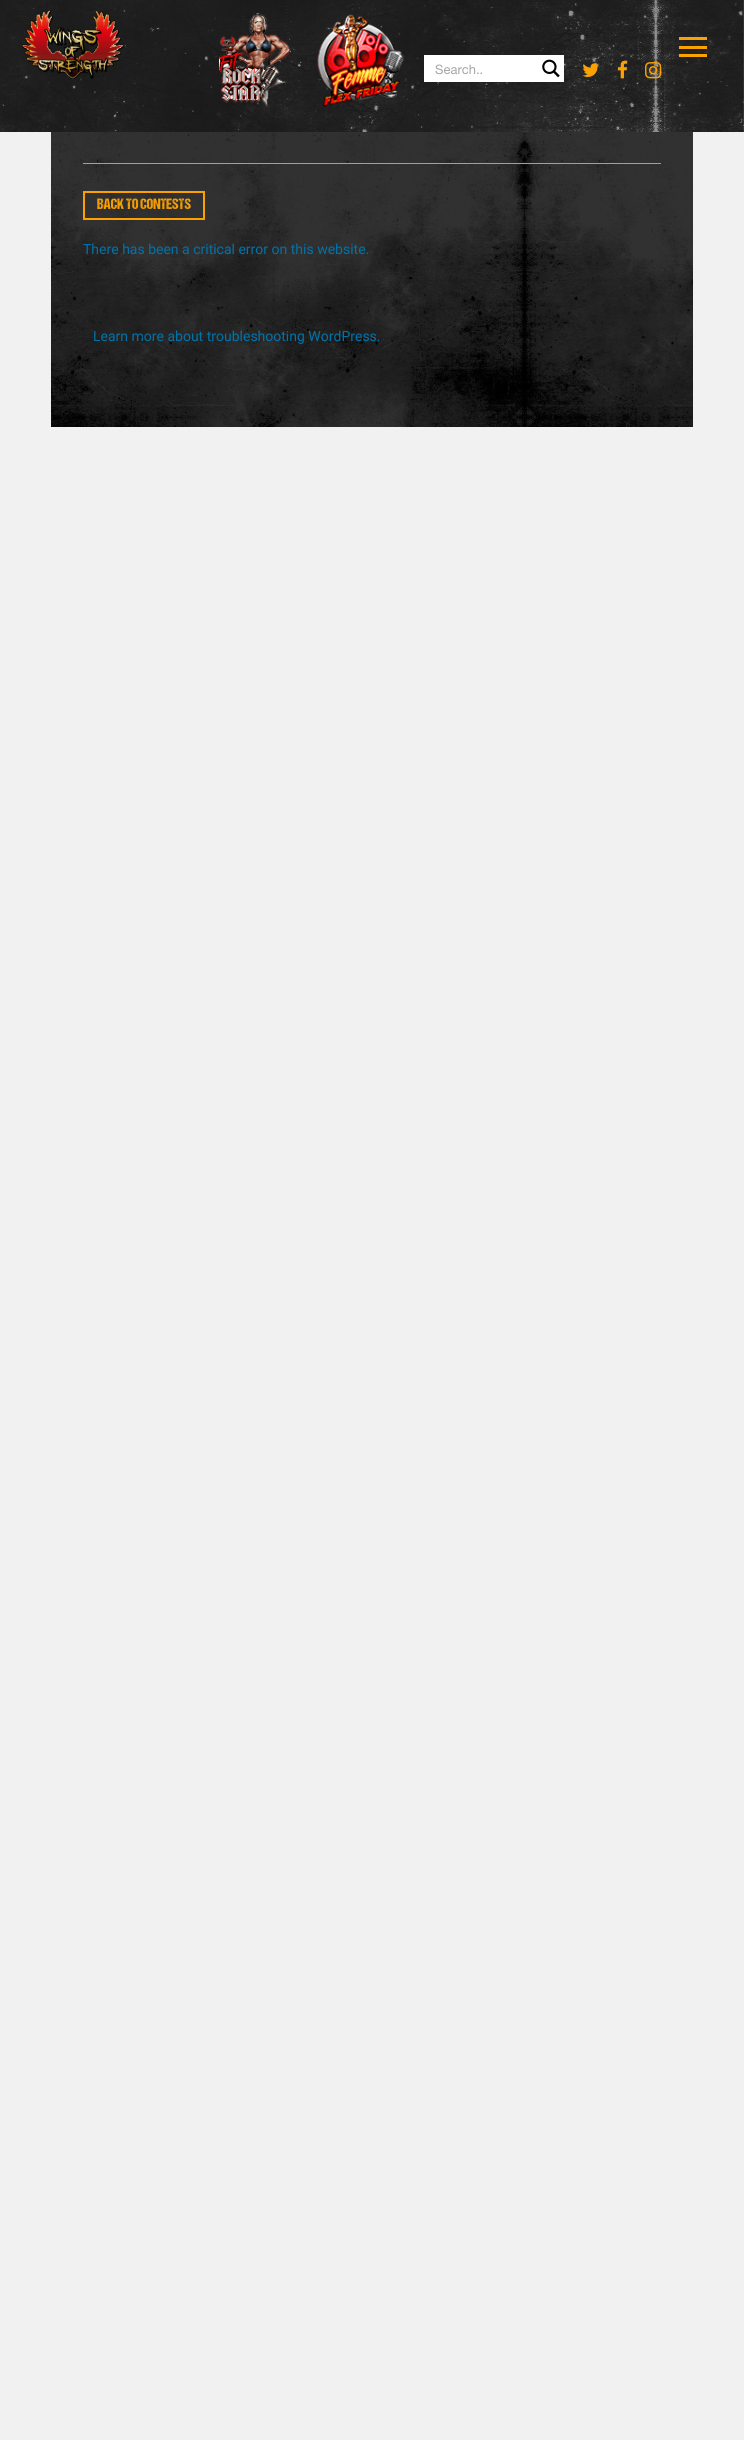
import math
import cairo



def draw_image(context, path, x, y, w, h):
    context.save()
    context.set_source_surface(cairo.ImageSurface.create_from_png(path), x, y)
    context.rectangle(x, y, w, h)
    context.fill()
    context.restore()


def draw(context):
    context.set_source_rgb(241 / 255, 241 / 255, 241 / 255)
    context.paint()
    draw_image(context, "images/1.png", 0, 0, 744, 132)
    draw_image(context, "images/2.png", 22, 10, 102, 69)
    draw_image(context, "images/3.png", 219, 13, 72, 94)
    draw_image(context, "images/4.png", 317, 14, 88, 93)
    context.set_source_rgb(251 / 255, 161 / 255, 1 / 255)
    context.rectangle(679, 37, 28, 3)
    context.fill()
    context.rectangle(679, 46, 28, 3)
    context.fill()
    context.rectangle(679, 54, 28, 3)
    context.fill()
    context.set_source_rgb(1, 1, 1)
    context.rectangle(424, 55, 140, 27)
    context.fill()
    draw_image(context, "images/5.png", 542, 59, 18, 19)
    draw_image(context, "images/6.png", 582, 63, 17, 14)
    draw_image(context, "images/7.png", 618, 60, 10, 19)
    draw_image(context, "images/8.png", 645, 62, 17, 17)
    draw_image(context, "images/9.png", 51, 132, 642, 295)
    context.set_source_rgb(160 / 255, 160 / 255, 160 / 255)
    context.rectangle(83, 163, 578, 1)
    context.fill()
    context.rectangle(84, 192, 120, 27)
    context.set_source_rgb(251 / 255, 161 / 255, 1 / 255)
    context.stroke()
    context.select_font_face("Helvetica Neue")
    context.set_font_size(13)
    context.set_source_rgb(168 / 255, 165 / 255, 165 / 255)
    context.move_to(435, 74)
    context.show_text("Search..")
    context.select_font_face("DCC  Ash")
    context.set_font_size(15)
    context.set_source_rgb(251 / 255, 161 / 255, 1 / 255)
    context.move_to(97, 209)
    context.show_text("BACK TO CONTESTS")
    context.select_font_face("Roboto")
    context.set_font_size(14)
    context.set_source_rgb(0, 115 / 255, 170 / 255)
    context.move_to(83, 254)
    context.show_text("There has been a critical error on this website.")
    context.move_to(93, 341)
    context.show_text("Learn more about troubleshooting WordPress.")


surface = cairo.ImageSurface(cairo.Format.RGB24, 744, 2440)
context = cairo.Context(surface)
options = cairo.FontOptions()
options.set_hint_metrics(cairo.HintMetrics.OFF)
options.set_hint_style(cairo.HintStyle.NONE)
context.set_font_options(options)
context.set_miter_limit(4)
draw(context)
surface.write_to_png("out.png")
